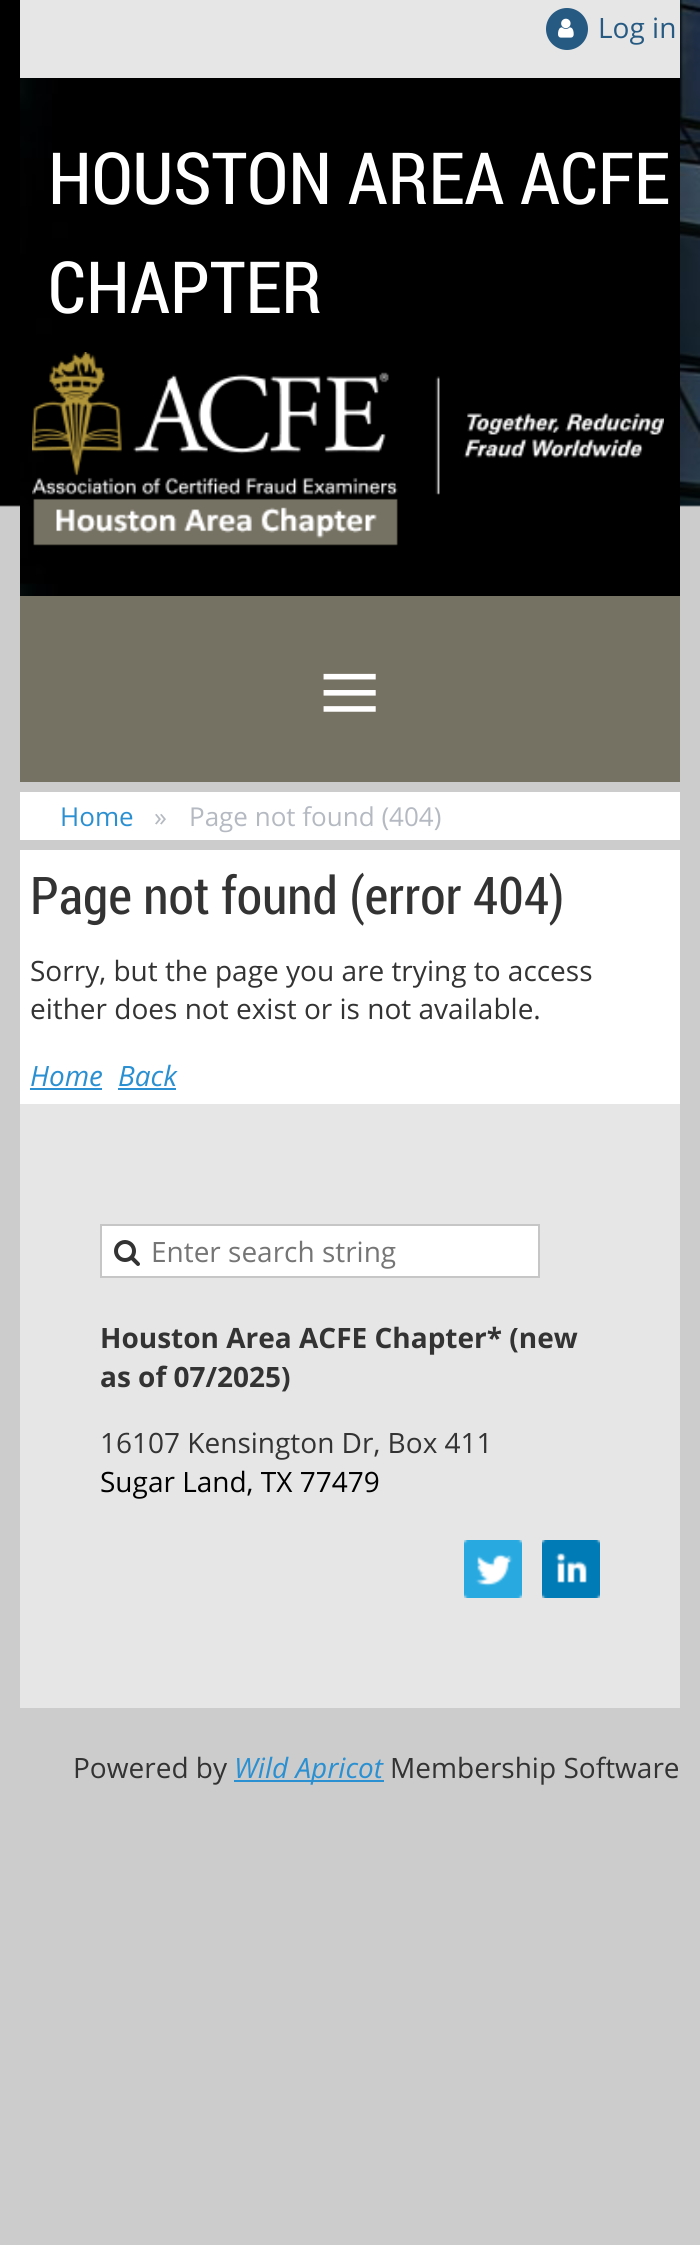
import math
import cairo



def draw_image(context, path, x, y, w, h):
    context.save()
    context.set_source_surface(cairo.ImageSurface.create_from_png(path), x, y)
    context.rectangle(x, y, w, h)
    context.fill()
    context.restore()


def draw(context):
    context.set_source_rgb(204 / 255, 204 / 255, 204 / 255)
    context.paint()
    draw_image(context, "images/1.png", 0, 0, 700, 507)
    context.set_source_rgb(230 / 255, 230 / 255, 230 / 255)
    context.rectangle(20, 0, 660, 78)
    context.fill()
    context.set_source_rgb(38 / 255, 90 / 255, 130 / 255)
    context.arc(567, 29, 19, 0, 2 * math.pi)
    context.fill_preserve()
    context.set_line_width(4)
    context.stroke()
    draw_image(context, "images/2.png", 558, 18, 16, 20)
    draw_image(context, "images/3.png", 20, 78, 660, 518)
    draw_image(context, "images/4.png", 32, 352, 632, 194)
    context.set_source_rgb(118 / 255, 114 / 255, 99 / 255)
    context.rectangle(20, 596, 660, 186)
    context.fill()
    context.set_source_rgb(1, 1, 1)
    context.rectangle(20, 792, 660, 48)
    context.fill()
    context.rectangle(20, 850, 660, 254)
    context.fill()
    context.set_source_rgb(43 / 255, 144 / 255, 209 / 255)
    context.rectangle(30, 1088, 72, 2)
    context.fill()
    context.rectangle(118, 1088, 58, 2)
    context.fill()
    context.set_source_rgb(230 / 255, 230 / 255, 230 / 255)
    context.rectangle(20, 1104, 660, 604)
    context.fill()
    context.set_source_rgb(1, 1, 1)
    context.rectangle(101, 1225, 438, 52)
    context.fill_preserve()
    context.set_source_rgb(198 / 255, 198 / 255, 198 / 255)
    context.set_line_width(2)
    context.stroke()
    draw_image(context, "images/5.png", 114, 1240, 26, 26)
    draw_image(context, "images/6.png", 464, 1540, 58, 58)
    draw_image(context, "images/7.png", 542, 1540, 58, 58)
    context.set_source_rgb(43 / 255, 144 / 255, 209 / 255)
    context.rectangle(234, 1780, 150, 2)
    context.fill()
    context.select_font_face("Open Sans")
    context.set_font_size(28)
    context.set_source_rgb(38 / 255, 90 / 255, 130 / 255)
    context.move_to(598, 38)
    context.show_text("Log in")
    context.select_font_face("Roboto Condensed")
    context.set_font_size(72)
    context.set_source_rgb(1, 1, 1)
    context.move_to(48, 204)
    context.show_text("HOUSTON AREA ACFE")
    context.move_to(48, 313)
    context.show_text("CHAPTER")
    context.select_font_face("Liberation Serif")
    context.set_font_size(112)
    context.move_to(318, 730)
    context.show_text("≡")
    context.select_font_face("Open Sans")
    context.set_font_size(26)
    context.set_source_rgb(43 / 255, 144 / 255, 209 / 255)
    context.move_to(60, 826)
    context.show_text("Home")
    context.set_source_rgb(181 / 255, 186 / 255, 194 / 255)
    context.move_to(154, 826)
    context.show_text("»")
    context.move_to(189, 826)
    context.show_text("Page not found (404)")
    context.select_font_face("Roboto Condensed")
    context.set_font_size(52)
    context.set_source_rgb(51 / 255, 51 / 255, 51 / 255)
    context.move_to(30, 914)
    context.show_text("Page not found (error 404)")
    context.select_font_face("Open Sans")
    context.set_font_size(28)
    context.move_to(30, 981)
    context.show_text("Sorry, but the page you are trying to access")
    context.move_to(30, 1019)
    context.show_text("either does not exist or is not available.")
    context.select_font_face("Open Sans", cairo.FontSlant.ITALIC)
    context.set_source_rgb(43 / 255, 144 / 255, 209 / 255)
    context.move_to(30, 1086)
    context.show_text("Home")
    context.move_to(118, 1086)
    context.show_text("Back")
    context.select_font_face("Open Sans")
    context.set_source_rgb(117 / 255, 117 / 255, 117 / 255)
    context.move_to(151, 1262)
    context.show_text("Enter search string")
    context.select_font_face("Open Sans", cairo.FontSlant.NORMAL, cairo.FontWeight.BOLD)
    context.set_source_rgb(51 / 255, 51 / 255, 51 / 255)
    context.move_to(100, 1348)
    context.show_text("Houston Area ACFE Chapter* (new")
    context.move_to(100, 1387)
    context.show_text("as of 07/2025)")
    context.select_font_face("Open Sans")
    context.move_to(100, 1453)
    context.show_text("16107 Kensington Dr, Box 411")
    context.set_source_rgb(0, 0, 0)
    context.move_to(100, 1492)
    context.show_text("Sugar Land, TX 77479")
    context.set_source_rgb(51 / 255, 51 / 255, 51 / 255)
    context.move_to(73, 1778)
    context.show_text("Powered by")
    context.select_font_face("Open Sans", cairo.FontSlant.ITALIC)
    context.set_source_rgb(43 / 255, 144 / 255, 209 / 255)
    context.move_to(234, 1778)
    context.show_text("Wild Apricot")
    context.select_font_face("Open Sans")
    context.set_source_rgb(51 / 255, 51 / 255, 51 / 255)
    context.move_to(390, 1778)
    context.show_text("Membership Software")


surface = cairo.ImageSurface(cairo.Format.RGB24, 700, 2245)
context = cairo.Context(surface)
options = cairo.FontOptions()
options.set_hint_metrics(cairo.HintMetrics.OFF)
options.set_hint_style(cairo.HintStyle.NONE)
context.set_font_options(options)
context.set_miter_limit(4)
draw(context)
surface.write_to_png("out.png")
